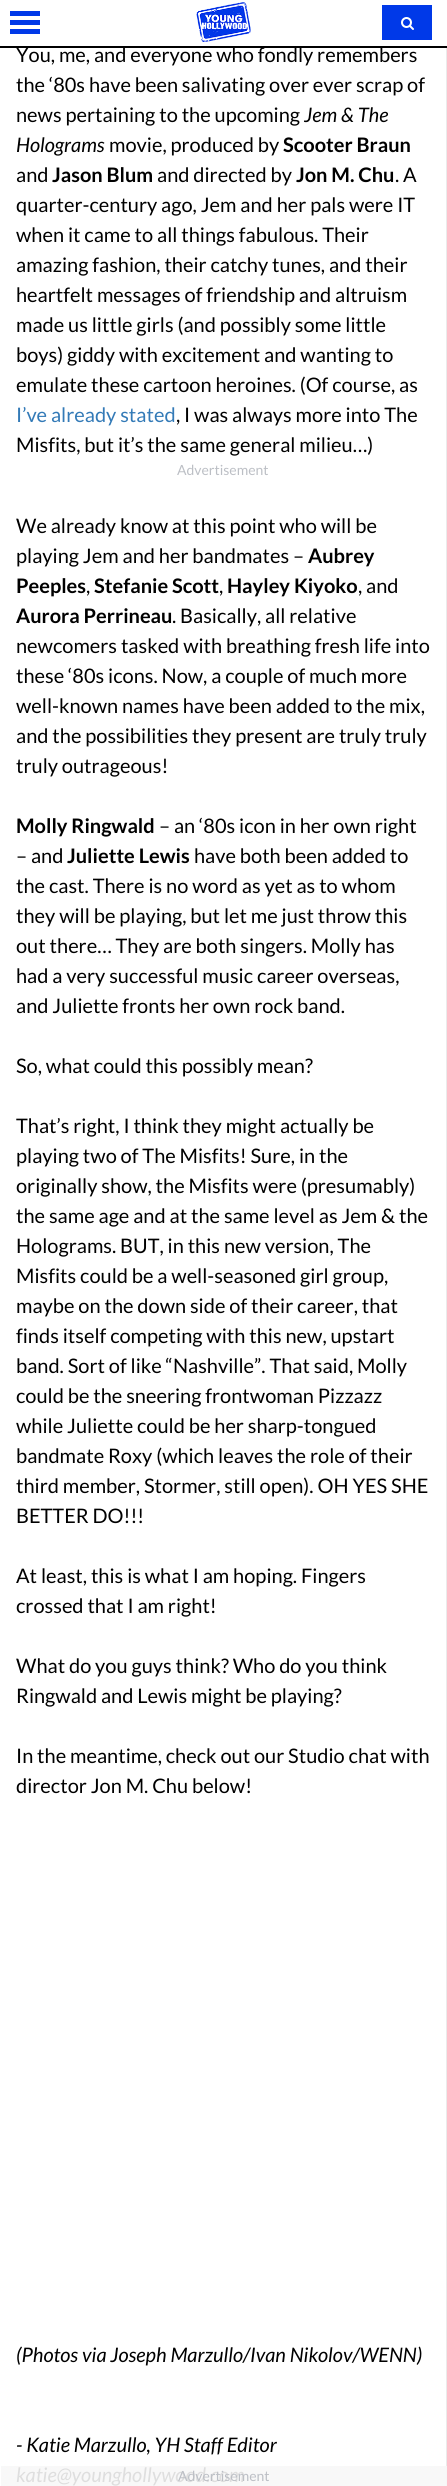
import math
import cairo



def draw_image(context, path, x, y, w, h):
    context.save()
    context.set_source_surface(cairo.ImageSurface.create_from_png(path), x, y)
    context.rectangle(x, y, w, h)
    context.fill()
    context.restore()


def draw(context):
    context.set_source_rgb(1, 1, 1)
    context.paint()
    context.set_source_rgb(248 / 255, 248 / 255, 248 / 255)
    context.rectangle(1, 2466, 445, 20)
    context.fill()
    context.set_source_rgb(0, 0, 0)
    context.rectangle(0, 46, 447, 2)
    context.fill()
    draw_image(context, "images/1.png", 196, 2, 55, 40)
    context.set_source_rgb(0, 57 / 255, 232 / 255)
    context.rectangle(10, 20, 30, 5)
    context.fill()
    context.rectangle(10, 11, 30, 5)
    context.fill()
    context.rectangle(10, 29, 30, 5)
    context.fill()
    context.rectangle(382, 5, 50, 35)
    context.fill()
    draw_image(context, "images/2.png", 401, 17, 13, 13)
    context.set_source_rgb(235 / 255, 235 / 255, 235 / 255)
    context.rectangle(446, 48, 1, 2418)
    context.fill()
    context.set_source_rgb(246 / 255, 246 / 255, 246 / 255)
    context.rectangle(446, 2466, 1, 20)
    context.fill()
    context.select_font_face("Lato")
    context.set_font_size(20)
    context.set_source_rgb(0, 0, 0)
    context.move_to(16, 62)
    context.show_text("You, me, and everyone who fondly remembers")
    context.move_to(16, 92)
    context.show_text("the ‘80s have been salivating over ever scrap of")
    context.move_to(16, 122)
    context.show_text("news pertaining to the upcoming")
    context.select_font_face("Lato", cairo.FontSlant.ITALIC)
    context.move_to(304, 122)
    context.show_text("Jem & The")
    context.move_to(16, 152)
    context.show_text("Holograms")
    context.select_font_face("Lato")
    context.move_to(109, 152)
    context.show_text("movie, produced by")
    context.select_font_face("Lato", cairo.FontSlant.NORMAL, cairo.FontWeight.BOLD)
    context.move_to(283, 152)
    context.show_text("Scooter Braun")
    context.select_font_face("Lato")
    context.move_to(16, 182)
    context.show_text("and")
    context.select_font_face("Lato", cairo.FontSlant.NORMAL, cairo.FontWeight.BOLD)
    context.move_to(52, 182)
    context.show_text("Jason Blum")
    context.select_font_face("Lato")
    context.move_to(157, 182)
    context.show_text("and directed by")
    context.select_font_face("Lato", cairo.FontSlant.NORMAL, cairo.FontWeight.BOLD)
    context.move_to(296, 182)
    context.show_text("Jon M. Chu")
    context.select_font_face("Lato")
    context.move_to(395, 182)
    context.show_text(". A")
    context.move_to(16, 212)
    context.show_text("quarter-century ago, Jem and her pals were IT")
    context.move_to(16, 242)
    context.show_text("when it came to all things fabulous. Their")
    context.move_to(16, 272)
    context.show_text("amazing fashion, their catchy tunes, and their")
    context.move_to(16, 302)
    context.show_text("heartfelt messages of friendship and altruism")
    context.move_to(16, 332)
    context.show_text("made us little girls (and possibly some little")
    context.move_to(16, 362)
    context.show_text("boys) giddy with excitement and wanting to")
    context.move_to(16, 392)
    context.show_text("emulate these cartoon heroines. (Of course, as")
    context.set_source_rgb(51 / 255, 122 / 255, 183 / 255)
    context.move_to(16, 422)
    context.show_text("I’ve already stated")
    context.set_source_rgb(0, 0, 0)
    context.move_to(176, 422)
    context.show_text(", I was always more into The")
    context.move_to(16, 452)
    context.show_text("Misfits, but it’s the same general milieu…)")
    context.set_font_size(14)
    context.set_source_rgb(188 / 255, 191 / 255, 197 / 255)
    context.move_to(177, 475)
    context.show_text("Advertisement")
    context.set_font_size(20)
    context.set_source_rgb(0, 0, 0)
    context.move_to(16, 533)
    context.show_text("We already know at this point who will be")
    context.move_to(16, 563)
    context.show_text("playing Jem and her bandmates –")
    context.select_font_face("Lato", cairo.FontSlant.NORMAL, cairo.FontWeight.BOLD)
    context.move_to(308, 563)
    context.show_text("Aubrey")
    context.move_to(16, 593)
    context.show_text("Peeples")
    context.select_font_face("Lato")
    context.move_to(86, 593)
    context.show_text(",")
    context.select_font_face("Lato", cairo.FontSlant.NORMAL, cairo.FontWeight.BOLD)
    context.move_to(94, 593)
    context.show_text("Stefanie Scott")
    context.select_font_face("Lato")
    context.move_to(219, 593)
    context.show_text(",")
    context.select_font_face("Lato", cairo.FontSlant.NORMAL, cairo.FontWeight.BOLD)
    context.move_to(227, 593)
    context.show_text("Hayley Kiyoko")
    context.select_font_face("Lato")
    context.move_to(358, 593)
    context.show_text(", and")
    context.select_font_face("Lato", cairo.FontSlant.NORMAL, cairo.FontWeight.BOLD)
    context.move_to(16, 623)
    context.show_text("Aurora Perrineau")
    context.select_font_face("Lato")
    context.move_to(172, 623)
    context.show_text(". Basically, all relative")
    context.move_to(16, 653)
    context.show_text("newcomers tasked with breathing fresh life into")
    context.move_to(16, 683)
    context.show_text("these ‘80s icons. Now, a couple of much more")
    context.move_to(16, 713)
    context.show_text("well-known names have been added to the mix,")
    context.move_to(16, 743)
    context.show_text("and the possibilities they present are truly truly")
    context.move_to(16, 773)
    context.show_text("truly outrageous!")
    context.select_font_face("Lato", cairo.FontSlant.NORMAL, cairo.FontWeight.BOLD)
    context.move_to(16, 833)
    context.show_text("Molly Ringwald")
    context.select_font_face("Lato")
    context.move_to(159, 833)
    context.show_text("– an ‘80s icon in her own right")
    context.move_to(16, 863)
    context.show_text("– and")
    context.select_font_face("Lato", cairo.FontSlant.NORMAL, cairo.FontWeight.BOLD)
    context.move_to(67, 863)
    context.show_text("Juliette Lewis")
    context.select_font_face("Lato")
    context.move_to(194, 863)
    context.show_text("have both been added to")
    context.move_to(16, 893)
    context.show_text("the cast. There is no word as yet as to whom")
    context.move_to(16, 923)
    context.show_text("they will be playing, but let me just throw this")
    context.move_to(16, 953)
    context.show_text("out there… They are both singers. Molly has")
    context.move_to(16, 983)
    context.show_text("had a very successful music career overseas,")
    context.move_to(16, 1013)
    context.show_text("and Juliette fronts her own rock band.")
    context.move_to(16, 1073)
    context.show_text("So, what could this possibly mean?")
    context.move_to(16, 1133)
    context.show_text("That’s right, I think they might actually be")
    context.move_to(16, 1163)
    context.show_text("playing two of The Misfits! Sure, in the")
    context.move_to(16, 1193)
    context.show_text("originally show, the Misfits were (presumably)")
    context.move_to(16, 1223)
    context.show_text("the same age and at the same level as Jem & the")
    context.move_to(16, 1253)
    context.show_text("Holograms. BUT, in this new version, The")
    context.move_to(16, 1283)
    context.show_text("Misfits could be a well-seasoned girl group,")
    context.move_to(16, 1313)
    context.show_text("maybe on the down side of their career, that")
    context.move_to(16, 1343)
    context.show_text("finds itself competing with this new, upstart")
    context.move_to(16, 1373)
    context.show_text("band. Sort of like “Nashville”. That said, Molly")
    context.move_to(16, 1403)
    context.show_text("could be the sneering frontwoman Pizzazz")
    context.move_to(16, 1433)
    context.show_text("while Juliette could be her sharp-tongued")
    context.move_to(16, 1463)
    context.show_text("bandmate Roxy (which leaves the role of their")
    context.move_to(16, 1493)
    context.show_text("third member, Stormer, still open). OH YES SHE")
    context.move_to(16, 1523)
    context.show_text("BETTER DO!!!")
    context.move_to(16, 1583)
    context.show_text("At least, this is what I am hoping. Fingers")
    context.move_to(16, 1613)
    context.show_text("crossed that I am right!")
    context.move_to(16, 1673)
    context.show_text("What do you guys think? Who do you think")
    context.move_to(16, 1703)
    context.show_text("Ringwald and Lewis might be playing?")
    context.move_to(16, 1763)
    context.show_text("In the meantime, check out our Studio chat with")
    context.move_to(16, 1793)
    context.show_text("director Jon M. Chu below!")
    context.select_font_face("Lato", cairo.FontSlant.ITALIC)
    context.move_to(16, 2362)
    context.show_text("(Photos via Joseph Marzullo/Ivan Nikolov/WENN)")
    context.move_to(16, 2452)
    context.show_text("- Katie Marzullo, YH Staff Editor")
    context.set_source_rgb(222 / 255, 222 / 255, 222 / 255)
    context.move_to(16, 2482)
    context.show_text("katie@younghollywood.com")
    context.select_font_face("Lato")
    context.set_font_size(14)
    context.set_source_rgb(188 / 255, 191 / 255, 197 / 255)
    context.move_to(178, 2481)
    context.show_text("Advertisement")


surface = cairo.ImageSurface(cairo.Format.RGB24, 447, 2486)
context = cairo.Context(surface)
options = cairo.FontOptions()
options.set_hint_metrics(cairo.HintMetrics.OFF)
options.set_hint_style(cairo.HintStyle.NONE)
context.set_font_options(options)
context.set_miter_limit(4)
draw(context)
surface.write_to_png("out.png")
